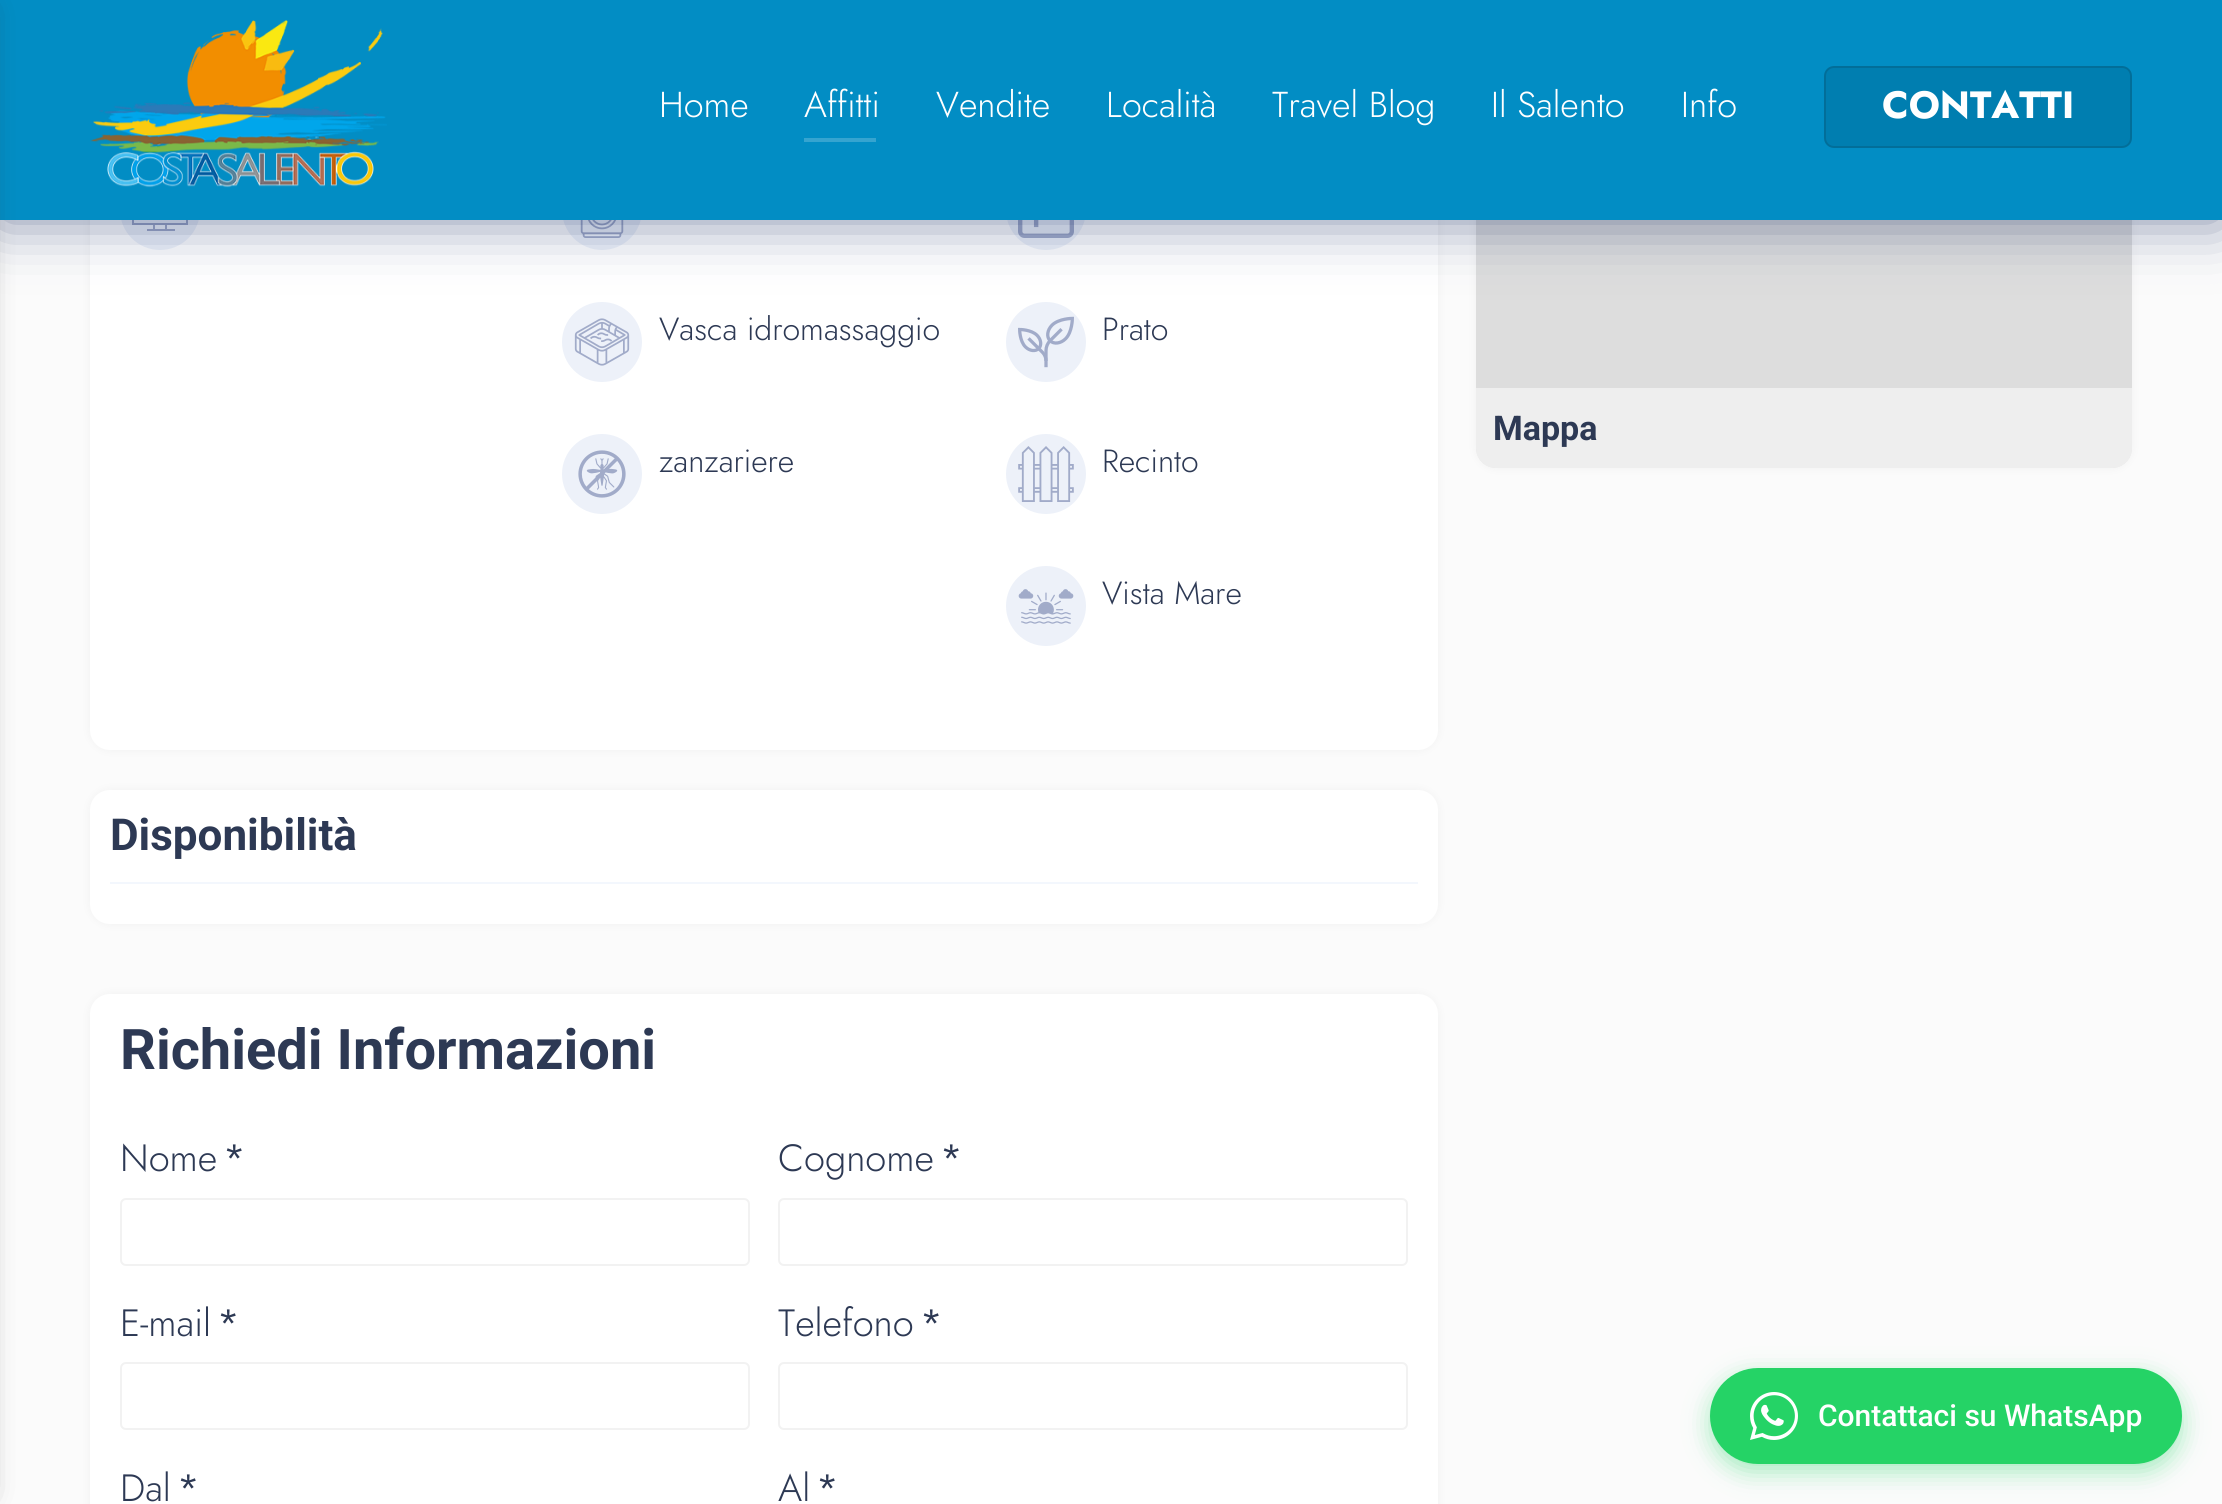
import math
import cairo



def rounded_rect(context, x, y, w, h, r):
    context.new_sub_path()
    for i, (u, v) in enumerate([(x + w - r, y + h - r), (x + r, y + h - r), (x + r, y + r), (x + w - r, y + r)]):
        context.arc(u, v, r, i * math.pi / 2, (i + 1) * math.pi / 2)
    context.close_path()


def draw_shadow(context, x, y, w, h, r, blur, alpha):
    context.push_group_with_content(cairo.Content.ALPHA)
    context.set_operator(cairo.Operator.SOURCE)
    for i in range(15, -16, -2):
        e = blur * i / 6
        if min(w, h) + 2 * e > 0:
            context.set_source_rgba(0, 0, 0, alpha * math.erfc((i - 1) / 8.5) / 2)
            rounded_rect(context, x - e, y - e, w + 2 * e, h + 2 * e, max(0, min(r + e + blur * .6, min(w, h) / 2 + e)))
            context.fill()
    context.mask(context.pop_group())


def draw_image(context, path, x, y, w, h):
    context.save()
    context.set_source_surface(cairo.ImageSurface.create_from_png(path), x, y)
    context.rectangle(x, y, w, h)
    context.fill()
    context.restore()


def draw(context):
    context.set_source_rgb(251 / 255, 251 / 255, 251 / 255)
    context.paint()
    context.set_source_rgb(222 / 255, 223 / 255, 223 / 255)
    draw_shadow(context, 94, -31, 1340, 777, 16, 5, 1)
    context.set_source_rgb(1, 1, 1)
    rounded_rect(context, 90, -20, 1348, 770, 20)
    context.fill()
    context.set_source_rgb(237 / 255, 241 / 255, 249 / 255)
    context.arc(160, 210, 40, 0, 2 * math.pi)
    context.fill()
    context.set_source_rgb(161 / 255, 171 / 255, 201 / 255)
    context.new_path()
    context.move_to(188, 225)
    context.line_to(188, 189)
    context.line_to(132, 189)
    context.line_to(132, 225)
    context.line_to(153, 225)
    context.line_to(153, 229)
    context.line_to(147, 229)
    context.line_to(147, 231)
    context.line_to(175, 231)
    context.line_to(175, 229)
    context.line_to(167, 229)
    context.line_to(167, 225)
    context.close_path()
    context.move_to(165, 229)
    context.line_to(155, 229)
    context.line_to(155, 225)
    context.line_to(165, 225)
    context.close_path()
    context.move_to(134, 223)
    context.line_to(134, 191)
    context.line_to(186, 191)
    context.line_to(186, 223)
    context.close_path()
    context.fill()
    context.set_source_rgb(237 / 255, 241 / 255, 249 / 255)
    context.arc(602, 210, 40, 0, 2 * math.pi)
    context.fill()
    draw_image(context, "images/2.png", 580, 220, 44, 18)
    context.arc(602, 342, 40, 0, 2 * math.pi)
    context.fill()
    context.arc(1046, 210, 40, 0, 2 * math.pi)
    context.fill()
    draw_image(context, "images/5.png", 1018, 220, 56, 18)
    context.arc(1046, 342, 40, 0, 2 * math.pi)
    context.fill()
    context.set_source_rgb(222 / 255, 223 / 255, 223 / 255)
    draw_shadow(context, 1480, -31, 648, 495, 16, 5, 1)
    context.set_source_rgb(221 / 255, 221 / 255, 221 / 255)
    rounded_rect(context, 1476, -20, 656, 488, 20)
    context.fill()
    context.set_source_rgb(0, 22 / 255, 84 / 255)
    draw_shadow(context, 0, 0, 2222, 220, 0, 30, 0.5)
    context.set_source_rgb(2 / 255, 141 / 255, 196 / 255)
    context.rectangle(0, 0, 2222, 220)
    context.fill()
    context.set_source_rgb(51 / 255, 51 / 255, 51 / 255)
    draw_shadow(context, -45, 12, 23, 1480, 0, 15, 1)
    draw_image(context, "images/1.png", 90, 20, 297, 168)
    context.set_source_rgb(53 / 255, 164 / 255, 208 / 255)
    context.rectangle(804, 138, 72, 4)
    context.fill()
    context.set_source_rgb(0, 126 / 255, 176 / 255)
    rounded_rect(context, 1825, 67, 306, 80, 9)
    context.fill_preserve()
    context.set_source_rgb(2 / 255, 110 / 255, 153 / 255)
    context.stroke()
    draw_image(context, "images/3.png", 574, 318, 56, 48)
    context.set_source_rgb(237 / 255, 241 / 255, 249 / 255)
    context.arc(602, 474, 40, 0, 2 * math.pi)
    context.fill()
    draw_image(context, "images/4.png", 578, 450, 48, 48)
    draw_image(context, "images/6.png", 1018, 316, 56, 52)
    context.arc(1046, 474, 40, 0, 2 * math.pi)
    context.fill()
    draw_image(context, "images/7.png", 1018, 446, 56, 56)
    context.arc(1046, 606, 40, 0, 2 * math.pi)
    context.fill()
    draw_image(context, "images/8.png", 1018, 589, 56, 35)
    context.set_source_rgb(222 / 255, 223 / 255, 223 / 255)
    draw_shadow(context, 94, 794, 1340, 126, 16, 5, 1)
    context.set_source_rgb(1, 1, 1)
    rounded_rect(context, 90, 790, 1348, 134, 20)
    context.fill()
    context.set_source_rgb(243 / 255, 247 / 255, 253 / 255)
    context.rectangle(110, 882, 1308, 2)
    context.fill()
    context.set_source_rgb(222 / 255, 223 / 255, 223 / 255)
    draw_shadow(context, 94, 998, 1340, 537, 16, 5, 1)
    context.set_source_rgb(1, 1, 1)
    rounded_rect(context, 90, 994, 1348, 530, 20)
    context.fill()
    rounded_rect(context, 121, 1199, 628, 66, 5)
    context.set_source_rgb(242 / 255, 242 / 255, 242 / 255)
    context.stroke()
    rounded_rect(context, 779, 1199, 628, 66, 5)
    context.stroke()
    rounded_rect(context, 121, 1363, 628, 66, 5)
    context.stroke()
    rounded_rect(context, 779, 1363, 628, 66, 5)
    context.stroke()
    context.set_source_rgba(1, 1, 1, 0.5)
    context.new_path()
    context.move_to(1476, 388)
    context.line_to(2132, 388)
    context.line_to(2132, 448)
    context.curve_to(2132, 459, 2123, 468, 2112, 468)
    context.line_to(1496, 468)
    context.curve_to(1485, 468, 1476, 459, 1476, 448)
    context.close_path()
    context.fill()
    context.set_source_rgb(37 / 255, 211 / 255, 102 / 255)
    draw_shadow(context, 1710, 1376, 472, 96, 48, 12, 0.4)
    context.set_source_rgb(37 / 255, 211 / 255, 102 / 255)
    rounded_rect(context, 1710, 1368, 472, 96, 48)
    context.fill()
    draw_image(context, "images/9.png", 1750, 1392, 48, 48)
    context.select_font_face("Jost Light")
    context.set_font_size(36)
    context.set_source_rgb(1, 1, 1)
    context.move_to(659, 117)
    context.show_text("Home")
    context.move_to(804, 117)
    context.show_text("Affitti")
    context.move_to(936, 117)
    context.show_text("Vendite")
    context.move_to(1106, 117)
    context.show_text("Località")
    context.move_to(1272, 117)
    context.show_text("Travel Blog")
    context.move_to(1491, 117)
    context.show_text("Il Salento")
    context.move_to(1681, 117)
    context.show_text("Info")
    context.select_font_face("Jost", cairo.FontSlant.NORMAL, cairo.FontWeight.BOLD)
    context.set_font_size(38)
    context.move_to(1882, 118)
    context.show_text("CONTATTI")
    context.select_font_face("Jost Light")
    context.set_font_size(32)
    context.set_source_rgb(45 / 255, 57 / 255, 84 / 255)
    context.move_to(659, 340)
    context.show_text("Vasca idromassaggio")
    context.move_to(659, 472)
    context.show_text("zanzariere")
    context.move_to(1102, 340)
    context.show_text("Prato")
    context.move_to(1102, 472)
    context.show_text("Recinto")
    context.move_to(1102, 604)
    context.show_text("Vista Mare")
    context.select_font_face("Roboto", cairo.FontSlant.NORMAL, cairo.FontWeight.BOLD)
    context.set_font_size(44)
    context.move_to(110, 850)
    context.show_text("Disponibilità")
    context.set_font_size(56)
    context.move_to(120, 1069)
    context.show_text("Richiedi Informazioni")
    context.select_font_face("Jost Light")
    context.set_font_size(38)
    context.move_to(120, 1171)
    context.show_text("Nome")
    context.select_font_face("Jost")
    context.move_to(223, 1171)
    context.show_text("*")
    context.select_font_face("Jost Light")
    context.move_to(778, 1171)
    context.show_text("Cognome")
    context.select_font_face("Jost")
    context.move_to(940, 1171)
    context.show_text("*")
    context.select_font_face("Jost Light")
    context.move_to(120, 1336)
    context.show_text("E-mail")
    context.select_font_face("Jost")
    context.move_to(217, 1336)
    context.show_text("*")
    context.select_font_face("Jost Light")
    context.move_to(778, 1336)
    context.show_text("Telefono")
    context.select_font_face("Jost")
    context.move_to(920, 1336)
    context.show_text("*")
    context.select_font_face("Jost Light")
    context.move_to(120, 1501)
    context.show_text("Dal")
    context.select_font_face("Jost")
    context.move_to(177, 1501)
    context.show_text("*")
    context.select_font_face("Jost Light")
    context.move_to(778, 1501)
    context.show_text("Al")
    context.select_font_face("Jost")
    context.move_to(816, 1501)
    context.show_text("*")
    context.select_font_face("Roboto", cairo.FontSlant.NORMAL, cairo.FontWeight.BOLD)
    context.set_font_size(34)
    context.move_to(1493, 440)
    context.show_text("Mappa")
    context.select_font_face("Roboto Medium")
    context.set_font_size(30)
    context.set_source_rgb(1, 1, 1)
    context.move_to(1818, 1426)
    context.show_text("Contattaci su WhatsApp")


surface = cairo.ImageSurface(cairo.Format.RGB24, 2222, 1504)
context = cairo.Context(surface)
options = cairo.FontOptions()
options.set_hint_metrics(cairo.HintMetrics.OFF)
options.set_hint_style(cairo.HintStyle.NONE)
context.set_font_options(options)
context.set_miter_limit(4)
draw(context)
surface.write_to_png("out.png")
